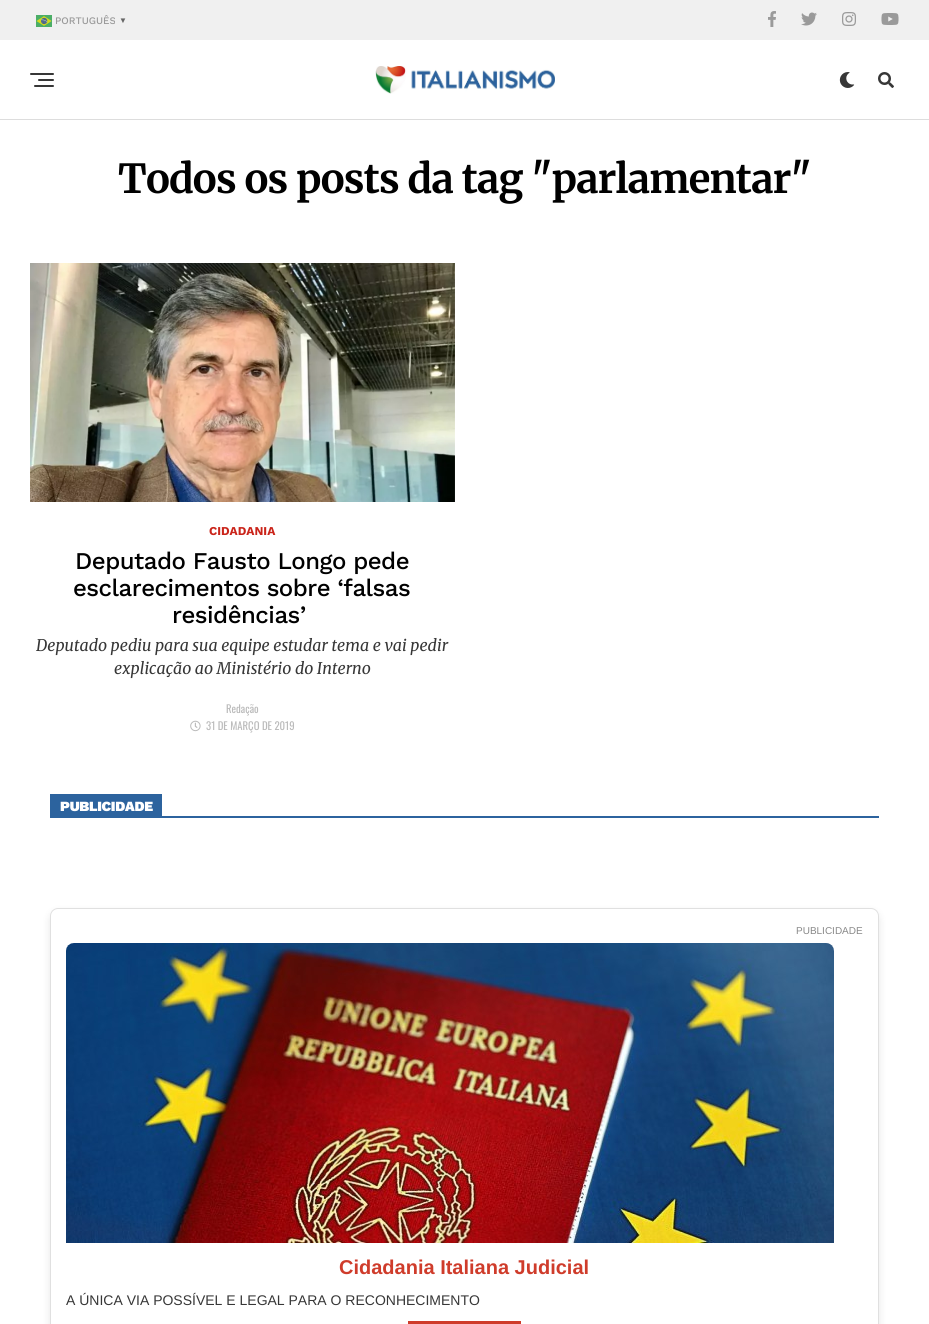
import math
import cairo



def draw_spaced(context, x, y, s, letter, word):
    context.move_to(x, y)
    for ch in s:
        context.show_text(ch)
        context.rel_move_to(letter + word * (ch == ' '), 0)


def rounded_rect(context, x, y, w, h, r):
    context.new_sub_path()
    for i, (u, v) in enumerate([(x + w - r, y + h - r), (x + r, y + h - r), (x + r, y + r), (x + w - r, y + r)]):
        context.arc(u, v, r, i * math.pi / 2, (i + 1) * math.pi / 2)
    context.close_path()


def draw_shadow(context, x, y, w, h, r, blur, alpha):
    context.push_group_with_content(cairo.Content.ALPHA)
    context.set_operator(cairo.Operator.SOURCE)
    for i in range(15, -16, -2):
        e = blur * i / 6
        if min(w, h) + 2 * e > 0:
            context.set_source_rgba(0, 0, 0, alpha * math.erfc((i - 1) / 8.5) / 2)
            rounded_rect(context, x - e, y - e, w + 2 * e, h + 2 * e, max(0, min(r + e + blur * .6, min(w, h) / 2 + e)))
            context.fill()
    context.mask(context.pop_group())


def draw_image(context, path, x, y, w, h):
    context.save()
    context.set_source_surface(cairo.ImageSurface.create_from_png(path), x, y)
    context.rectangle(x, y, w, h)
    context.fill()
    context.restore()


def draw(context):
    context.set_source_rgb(1, 1, 1)
    context.paint()
    context.set_source_rgb(240 / 255, 240 / 255, 240 / 255)
    context.rectangle(0, 0, 929, 40)
    context.fill()
    draw_image(context, "images/1.png", 36, 15, 16, 12)
    draw_image(context, "images/2.png", 768, 11, 8, 16)
    draw_image(context, "images/3.png", 801, 12, 16, 14)
    draw_image(context, "images/4.png", 842, 12, 14, 14)
    draw_image(context, "images/5.png", 881, 13, 18, 12)
    context.set_source_rgb(221 / 255, 221 / 255, 221 / 255)
    context.rectangle(0, 119, 929, 1)
    context.fill()
    context.set_source_rgb(55 / 255, 55 / 255, 55 / 255)
    rounded_rect(context, 30, 73, 24, 2, 1)
    context.fill()
    rounded_rect(context, 38, 79, 16, 2, 1)
    context.fill()
    rounded_rect(context, 34, 85, 20, 2, 1)
    context.fill()
    draw_image(context, "images/6.png", 375, 66, 180, 28)
    draw_image(context, "images/7.png", 839, 72, 16, 16)
    draw_image(context, "images/8.png", 878, 72, 16, 16)
    draw_image(context, "images/9.png", 30, 263, 425, 239)
    draw_image(context, "images/10.png", 190, 720, 11, 12)
    context.set_source_rgb(44 / 255, 99 / 255, 158 / 255)
    context.rectangle(50, 816, 829, 2)
    context.fill()
    context.rectangle(50, 794, 112, 22)
    context.fill()
    context.save()
    context.set_fill_rule(cairo.FillRule.EVEN_ODD)
    context.new_path()
    context.move_to(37, 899)
    context.line_to(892, 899)
    context.line_to(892, 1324)
    context.line_to(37, 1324)
    context.close_path()
    context.move_to(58, 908)
    context.line_to(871, 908)
    context.curve_to(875.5, 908, 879, 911.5, 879, 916)
    context.line_to(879, 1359)
    context.curve_to(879, 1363.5, 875.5, 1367, 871, 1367)
    context.line_to(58, 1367)
    context.curve_to(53.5, 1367, 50, 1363.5, 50, 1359)
    context.line_to(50, 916)
    context.curve_to(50, 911.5, 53.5, 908, 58, 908)
    context.close_path()
    context.clip()
    context.set_source_rgb(0, 0, 0)
    draw_shadow(context, 50, 912, 829, 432, 8, 4, 0.1)
    context.restore()
    rounded_rect(context, 50.5, 908.5, 828, 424, 7.5)
    context.set_source_rgb(224 / 255, 224 / 255, 224 / 255)
    context.set_line_width(1)
    context.stroke()
    draw_image(context, "images/11.png", 66, 943, 768, 300)
    context.set_source_rgb(207 / 255, 60 / 255, 43 / 255)
    context.rectangle(408, 1321, 113, 3)
    context.fill()
    context.select_font_face("Work Sans Medium")
    context.set_font_size(10)
    context.set_source_rgb(154 / 255, 154 / 255, 154 / 255)
    context.move_to(55, 24)
    context.show_text("PORTUGUÊS")
    context.select_font_face("Liberation Sans", cairo.FontSlant.NORMAL, cairo.FontWeight.BOLD)
    context.set_font_size(8)
    context.set_source_rgb(102 / 255, 102 / 255, 102 / 255)
    context.move_to(119, 23)
    context.show_text("▼")
    context.select_font_face("Merriweather", cairo.FontSlant.NORMAL, cairo.FontWeight.BOLD)
    context.set_font_size(40)
    context.set_source_rgb(0, 0, 0)
    draw_spaced(context, 118, 193, "Todos os posts da tag \"parlamentar\"", -0.8, 0)
    context.select_font_face("Work Sans", cairo.FontSlant.NORMAL, cairo.FontWeight.BOLD)
    context.set_font_size(12)
    context.set_source_rgb(202 / 255, 36 / 255, 26 / 255)
    context.move_to(209, 535)
    context.show_text("CIDADANIA")
    context.select_font_face("Work Sans Medium")
    context.set_font_size(24)
    context.set_source_rgb(0, 0, 0)
    draw_spaced(context, 75, 569, "Deputado Fausto Longo pede", -0.5, 0)
    draw_spaced(context, 73, 596, "esclarecimentos sobre ‘falsas", -0.5, 0)
    draw_spaced(context, 172, 623, "residências’", -0.5, 0)
    context.select_font_face("Merriweather", cairo.FontSlant.ITALIC)
    context.set_font_size(16)
    context.set_source_rgb(55 / 255, 55 / 255, 55 / 255)
    context.move_to(36, 651)
    context.show_text("Deputado pediu para sua equipe estudar tema e vai pedir")
    context.move_to(114, 674)
    context.show_text("explicação ao Ministério do Interno")
    context.select_font_face("Oswald")
    context.set_font_size(10.75)
    context.set_source_rgb(187 / 255, 187 / 255, 187 / 255)
    context.move_to(226, 713)
    context.show_text("Redação")
    context.move_to(206, 730)
    context.show_text("31 DE MARÇO DE 2019")
    context.select_font_face("Work Sans Black")
    context.set_font_size(14)
    context.set_source_rgb(1, 1, 1)
    draw_spaced(context, 60, 811, "PUBLICIDADE", -0.25, 0)
    context.select_font_face("Liberation Sans")
    context.set_font_size(10)
    context.set_source_rgb(136 / 255, 136 / 255, 136 / 255)
    context.move_to(796, 934)
    context.show_text("PUBLICIDADE")
    context.select_font_face("Liberation Sans", cairo.FontSlant.NORMAL, cairo.FontWeight.BOLD)
    context.set_font_size(20)
    context.set_source_rgb(207 / 255, 60 / 255, 43 / 255)
    context.move_to(339, 1274)
    context.show_text("Cidadania Italiana Judicial")
    context.select_font_face("Liberation Sans")
    context.set_font_size(14)
    context.set_source_rgb(55 / 255, 55 / 255, 55 / 255)
    context.move_to(66, 1305)
    context.show_text("A ÚNICA VIA POSSÍVEL E LEGAL PARA O RECONHECIMENTO")


surface = cairo.ImageSurface(cairo.Format.RGB24, 929, 1324)
context = cairo.Context(surface)
options = cairo.FontOptions()
options.set_hint_metrics(cairo.HintMetrics.OFF)
options.set_hint_style(cairo.HintStyle.NONE)
context.set_font_options(options)
context.set_miter_limit(4)
draw(context)
surface.write_to_png("out.png")
